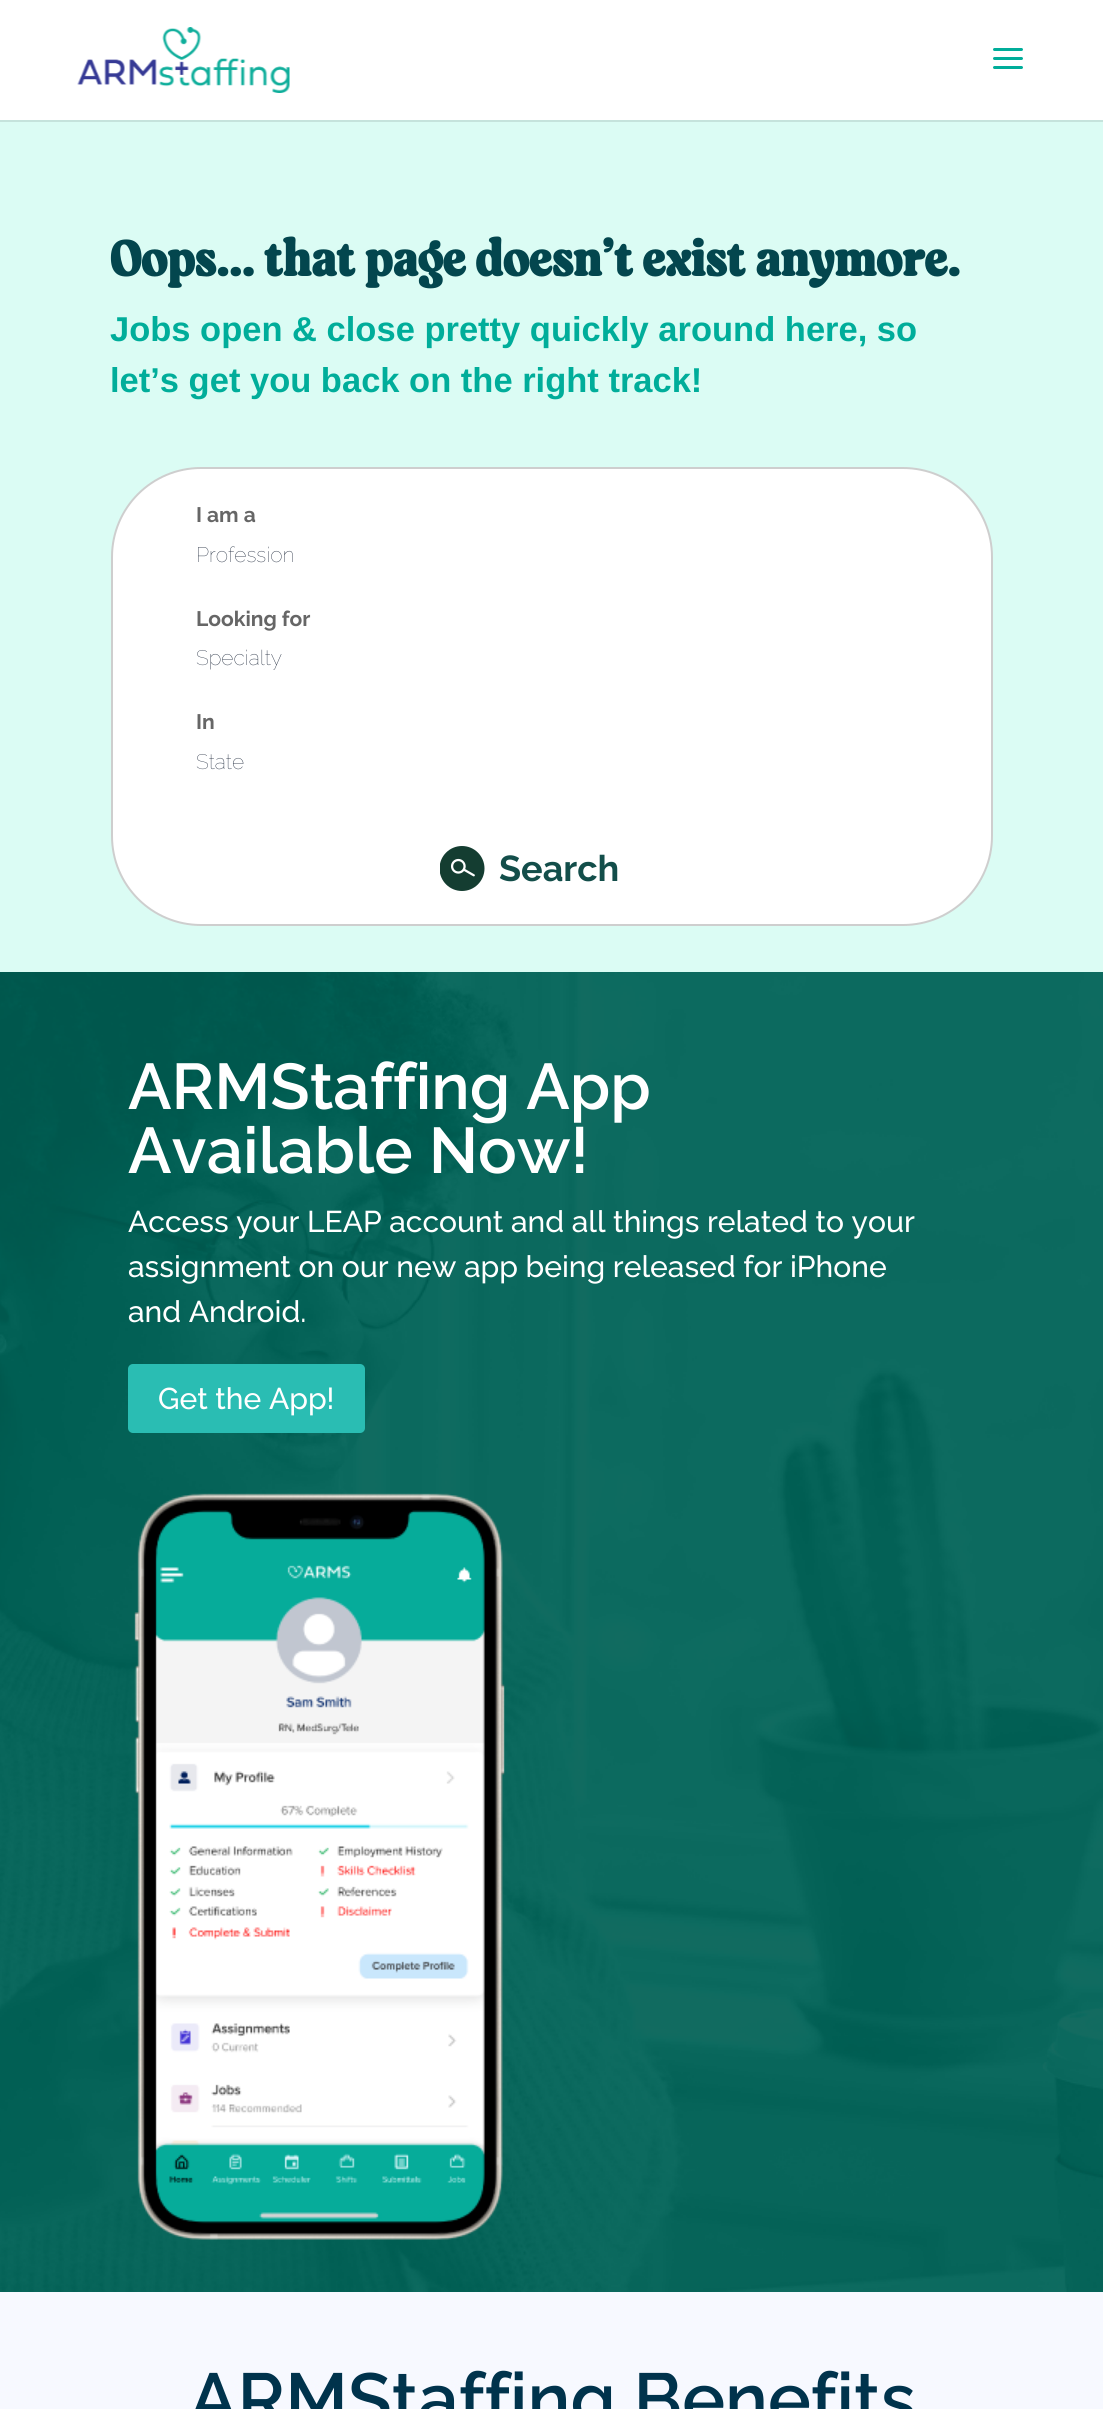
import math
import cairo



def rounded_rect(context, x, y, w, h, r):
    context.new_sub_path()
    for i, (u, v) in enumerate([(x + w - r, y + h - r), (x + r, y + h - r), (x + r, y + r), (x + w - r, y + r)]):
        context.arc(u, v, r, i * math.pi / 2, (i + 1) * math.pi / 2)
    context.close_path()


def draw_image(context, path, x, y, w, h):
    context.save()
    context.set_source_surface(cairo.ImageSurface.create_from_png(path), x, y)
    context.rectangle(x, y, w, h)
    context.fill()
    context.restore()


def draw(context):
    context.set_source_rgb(219 / 255, 252 / 255, 244 / 255)
    context.paint()
    context.set_source_rgb(197 / 255, 227 / 255, 220 / 255)
    context.rectangle(0, 120, 1103, 2)
    context.fill()
    context.set_source_rgb(1, 1, 1)
    context.rectangle(0, 0, 1103, 120)
    context.fill()
    draw_image(context, "images/1.png", 77, 27, 213, 66)
    draw_image(context, "images/2.png", 993, 48, 30, 21)
    rounded_rect(context, 112, 468, 880, 457, 89)
    context.fill_preserve()
    context.set_source_rgb(206 / 255, 206 / 255, 206 / 255)
    context.stroke()
    draw_image(context, "images/3.png", 440, 846, 45, 45)
    draw_image(context, "images/4.png", 0, 972, 1103, 1320)
    context.set_source_rgb(42 / 255, 189 / 255, 179 / 255)
    rounded_rect(context, 128, 1364, 237, 69, 5)
    context.fill()
    draw_image(context, "images/5.png", 134, 1493, 371, 747)
    context.set_source_rgb(247 / 255, 249 / 255, 1)
    context.rectangle(0, 2292, 1103, 117)
    context.fill()
    context.select_font_face("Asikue", cairo.FontSlant.NORMAL, cairo.FontWeight.BOLD)
    context.set_font_size(49.5)
    context.set_source_rgb(3 / 255, 70 / 255, 78 / 255)
    context.move_to(110, 276)
    context.show_text("Oops… that page doesn’t exist anymore.")
    context.select_font_face("Liberation Sans", cairo.FontSlant.NORMAL, cairo.FontWeight.BOLD)
    context.set_font_size(34.5)
    context.set_source_rgb(0, 173 / 255, 154 / 255)
    context.move_to(110, 341)
    context.show_text("Jobs open & close pretty quickly around here, so")
    context.move_to(110, 392)
    context.show_text("let’s get you back on the right track!")
    context.select_font_face("Raleway", cairo.FontSlant.NORMAL, cairo.FontWeight.BOLD)
    context.set_font_size(21)
    context.set_source_rgb(102 / 255, 102 / 255, 102 / 255)
    context.move_to(196, 522)
    context.show_text("I am a")
    context.select_font_face("Raleway Thin")
    context.set_source_rgb(30 / 255, 41 / 255, 59 / 255)
    context.move_to(196, 562)
    context.show_text("Profession")
    context.select_font_face("Raleway", cairo.FontSlant.NORMAL, cairo.FontWeight.BOLD)
    context.set_source_rgb(102 / 255, 102 / 255, 102 / 255)
    context.move_to(196, 626)
    context.show_text("Looking for")
    context.select_font_face("Raleway Thin")
    context.set_source_rgb(30 / 255, 41 / 255, 59 / 255)
    context.move_to(196, 665)
    context.show_text("Specialty")
    context.select_font_face("Raleway", cairo.FontSlant.NORMAL, cairo.FontWeight.BOLD)
    context.set_source_rgb(102 / 255, 102 / 255, 102 / 255)
    context.move_to(196, 729)
    context.show_text("In")
    context.select_font_face("Raleway Thin")
    context.set_source_rgb(30 / 255, 41 / 255, 59 / 255)
    context.move_to(196, 769)
    context.show_text("State")
    context.select_font_face("Raleway", cairo.FontSlant.NORMAL, cairo.FontWeight.BOLD)
    context.set_font_size(36)
    context.set_source_rgb(19 / 255, 78 / 255, 74 / 255)
    context.move_to(499, 881)
    context.show_text("Search")
    context.select_font_face("Raleway SemiBold")
    context.set_font_size(64.5)
    context.set_source_rgb(1, 1, 1)
    context.move_to(128, 1109)
    context.show_text("ARMStaffing App")
    context.move_to(128, 1173)
    context.show_text("Available Now!")
    context.select_font_face("Raleway Medium")
    context.set_font_size(30)
    context.move_to(128, 1232)
    context.show_text("Access your LEAP account and all things related to your")
    context.move_to(128, 1277)
    context.show_text("assignment on our new app being released for iPhone")
    context.move_to(128, 1322)
    context.show_text("and Android.")
    context.move_to(158, 1409)
    context.show_text("Get the App!")
    context.select_font_face("Raleway SemiBold")
    context.set_font_size(72)
    context.set_source_rgb(0, 51 / 255, 76 / 255)
    context.move_to(189, 2424)
    context.show_text("ARMStaffing Benefits")


surface = cairo.ImageSurface(cairo.Format.RGB24, 1103, 2409)
context = cairo.Context(surface)
options = cairo.FontOptions()
options.set_hint_metrics(cairo.HintMetrics.OFF)
options.set_hint_style(cairo.HintStyle.NONE)
context.set_font_options(options)
context.set_miter_limit(4)
draw(context)
surface.write_to_png("out.png")
